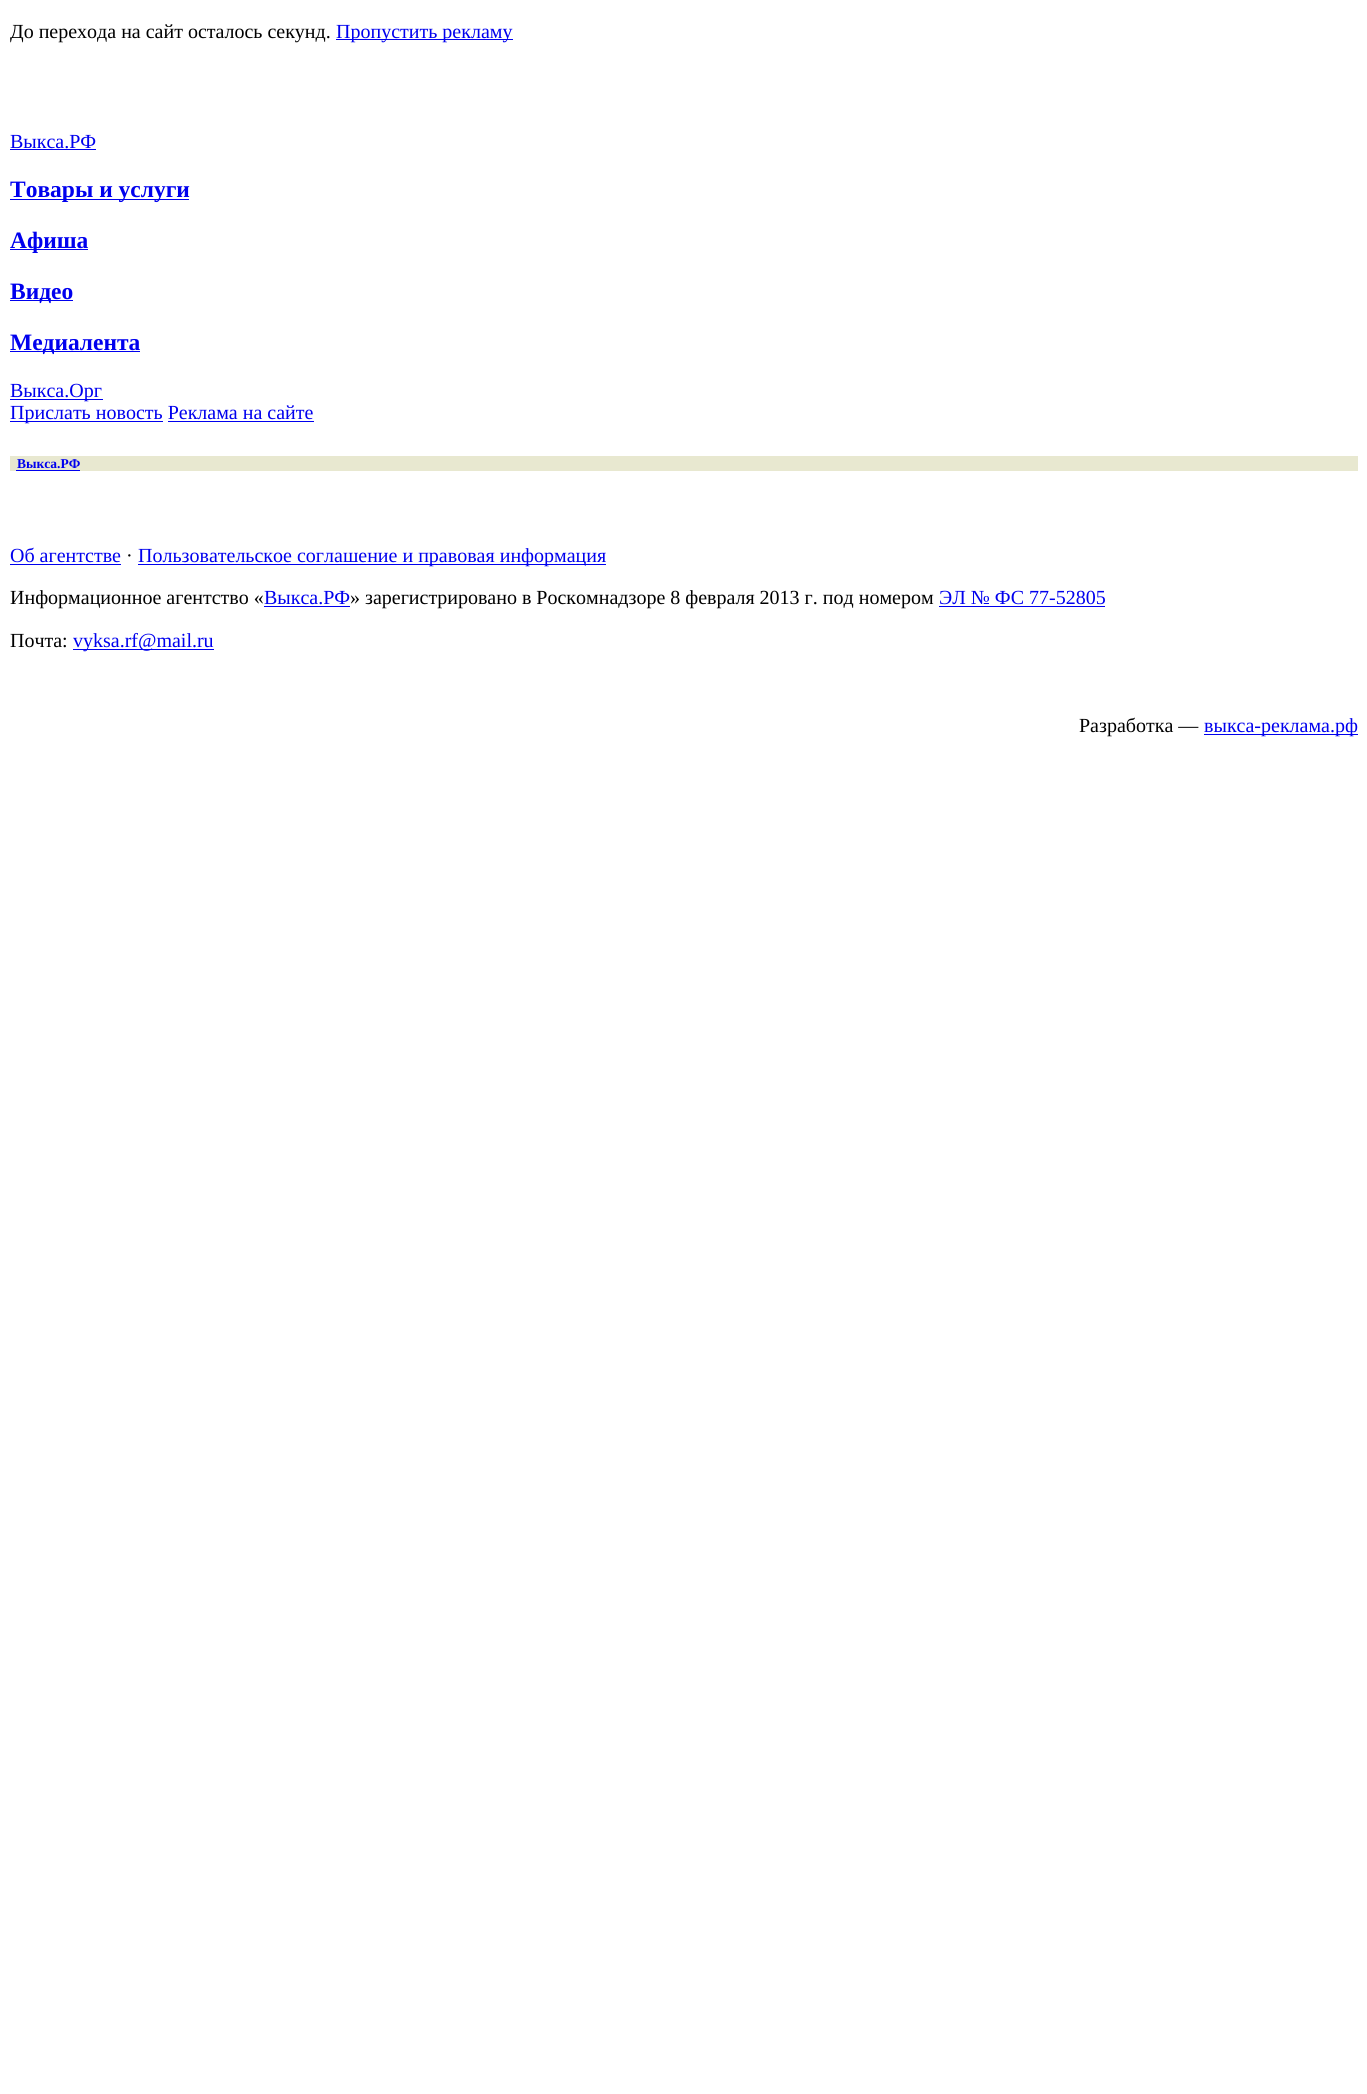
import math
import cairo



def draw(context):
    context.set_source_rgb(1, 1, 1)
    context.paint()
    context.set_source_rgb(0, 0, 238 / 255)
    context.rectangle(336, 39, 177, 1)
    context.fill()
    context.rectangle(10, 149, 86, 1)
    context.fill()
    context.rectangle(10, 199, 179, 1)
    context.fill()
    context.rectangle(10, 249, 78, 1)
    context.fill()
    context.rectangle(10, 300, 63, 1)
    context.fill()
    context.rectangle(10, 351, 130, 1)
    context.fill()
    context.rectangle(10, 399, 93, 1)
    context.fill()
    context.rectangle(10, 421, 153, 1)
    context.fill()
    context.rectangle(168, 421, 146, 1)
    context.fill()
    context.set_source_rgb(232 / 255, 232 / 255, 208 / 255)
    context.rectangle(10, 456, 1348, 15)
    context.fill()
    context.set_source_rgb(0, 0, 238 / 255)
    context.rectangle(16, 470, 64, 1)
    context.fill()
    context.rectangle(10, 564, 111, 1)
    context.fill()
    context.rectangle(138, 564, 468, 1)
    context.fill()
    context.rectangle(264, 606, 86, 1)
    context.fill()
    context.rectangle(939, 606, 166, 1)
    context.fill()
    context.rectangle(73, 649, 141, 1)
    context.fill()
    context.rectangle(1204, 734, 154, 1)
    context.fill()
    context.select_font_face("Liberation Serif")
    context.set_font_size(20)
    context.set_source_rgb(0, 0, 0)
    context.move_to(10, 38)
    context.show_text("До перехода на сайт осталось секунд.")
    context.set_source_rgb(0, 0, 238 / 255)
    context.move_to(336, 38)
    context.show_text("Пропустить рекламу")
    context.move_to(10, 148)
    context.show_text("Выкса.РФ")
    context.select_font_face("Liberation Serif", cairo.FontSlant.NORMAL, cairo.FontWeight.BOLD)
    context.set_font_size(23.5)
    context.move_to(10, 197)
    context.show_text("Товары и услуги")
    context.move_to(10, 248)
    context.show_text("Афиша")
    context.move_to(10, 299)
    context.show_text("Видео")
    context.move_to(10, 350)
    context.show_text("Медиалента")
    context.select_font_face("Liberation Serif")
    context.set_font_size(20)
    context.move_to(10, 397)
    context.show_text("Выкса.Орг")
    context.move_to(10, 419)
    context.show_text("Прислать новость Реклама на сайте")
    context.select_font_face("Liberation Serif", cairo.FontSlant.NORMAL, cairo.FontWeight.BOLD)
    context.set_font_size(13.5)
    context.move_to(17, 468)
    context.show_text("Выкса.РФ")
    context.select_font_face("Liberation Serif")
    context.set_font_size(20)
    context.move_to(10, 562)
    context.show_text("Об агентстве")
    context.set_source_rgb(0, 0, 0)
    context.move_to(126, 562)
    context.show_text("·")
    context.set_source_rgb(0, 0, 238 / 255)
    context.move_to(138, 562)
    context.show_text("Пользовательское соглашение и правовая информация")
    context.set_source_rgb(0, 0, 0)
    context.move_to(10, 604)
    context.show_text("Информационное агентство «")
    context.set_source_rgb(0, 0, 238 / 255)
    context.move_to(264, 604)
    context.show_text("Выкса.РФ")
    context.set_source_rgb(0, 0, 0)
    context.move_to(350, 604)
    context.show_text("» зарегистрировано в Роскомнадзоре 8 февраля 2013 г. под номером")
    context.set_source_rgb(0, 0, 238 / 255)
    context.move_to(939, 604)
    context.show_text("ЭЛ № ФС 77-52805")
    context.set_source_rgb(0, 0, 0)
    context.move_to(10, 647)
    context.show_text("Почта:")
    context.set_source_rgb(0, 0, 238 / 255)
    context.move_to(73, 647)
    context.show_text("vyksa.rf@mail.ru")
    context.set_source_rgb(0, 0, 0)
    context.move_to(1079, 732)
    context.show_text("Разработка —")
    context.set_source_rgb(0, 0, 238 / 255)
    context.move_to(1204, 732)
    context.show_text("выкса-реклама.рф")


surface = cairo.ImageSurface(cairo.Format.RGB24, 1367, 2094)
context = cairo.Context(surface)
options = cairo.FontOptions()
options.set_hint_metrics(cairo.HintMetrics.OFF)
options.set_hint_style(cairo.HintStyle.NONE)
context.set_font_options(options)
context.set_miter_limit(4)
draw(context)
surface.write_to_png("out.png")
